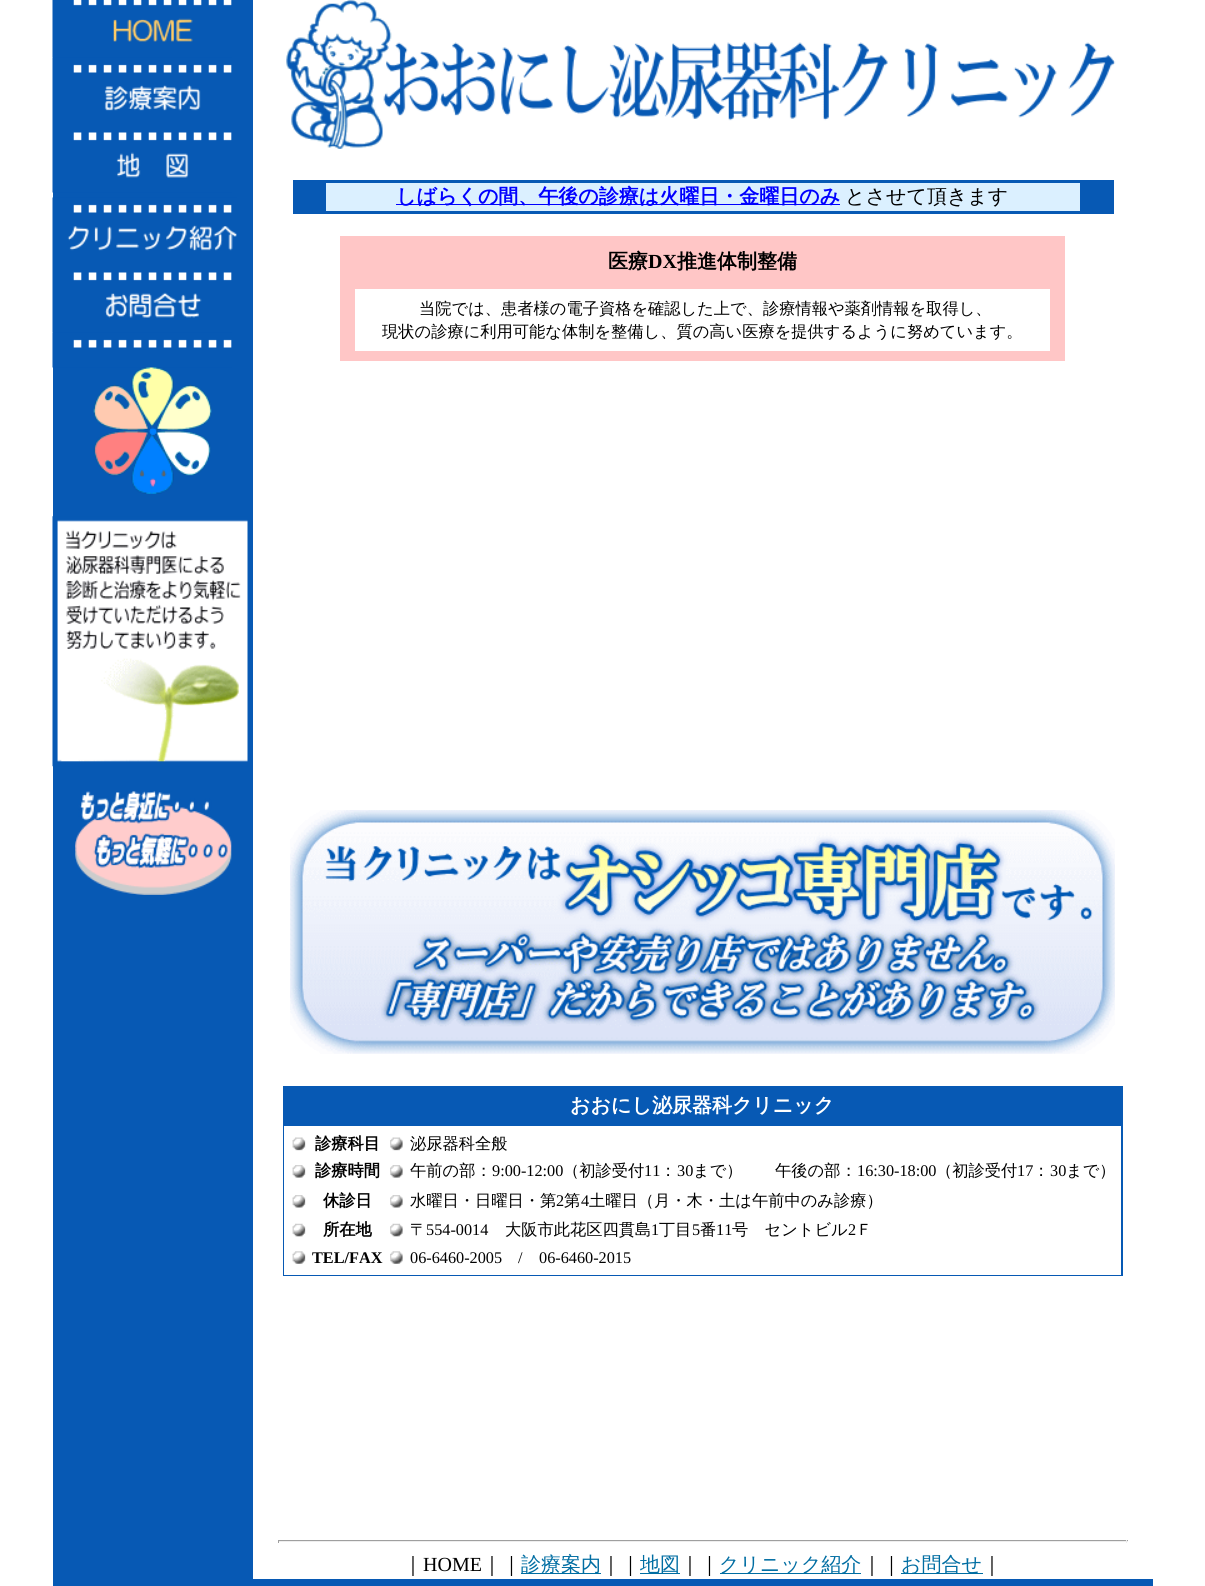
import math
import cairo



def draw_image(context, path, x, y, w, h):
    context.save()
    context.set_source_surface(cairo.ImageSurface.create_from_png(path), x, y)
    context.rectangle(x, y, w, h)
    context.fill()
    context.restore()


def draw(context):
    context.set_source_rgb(1, 1, 1)
    context.paint()
    context.set_source_rgb(7 / 255, 89 / 255, 180 / 255)
    context.rectangle(53, 0, 200, 1579)
    context.fill()
    draw_image(context, "images/1.png", 52, 0, 180, 58)
    draw_image(context, "images/2.png", 52, 57, 180, 68)
    draw_image(context, "images/3.png", 52, 125, 180, 68)
    draw_image(context, "images/4.png", 52, 197, 185, 68)
    draw_image(context, "images/5.png", 52, 265, 180, 68)
    draw_image(context, "images/6.png", 52, 332, 180, 36)
    draw_image(context, "images/7.png", 93, 367, 119, 127)
    draw_image(context, "images/8.png", 52, 516, 196, 251)
    draw_image(context, "images/9.png", 75, 791, 157, 104)
    draw_image(context, "images/10.png", 286, 0, 830, 149)
    context.rectangle(293, 180, 821, 34)
    context.fill()
    context.set_source_rgb(219 / 255, 240 / 255, 1)
    context.rectangle(326, 183, 754, 28)
    context.fill()
    context.set_source_rgb(0, 0, 1)
    context.rectangle(396, 204, 444, 1)
    context.fill()
    context.set_source_rgb(1, 198 / 255, 198 / 255)
    context.rectangle(340, 236, 725, 125)
    context.fill()
    context.set_source_rgb(1, 1, 1)
    context.rectangle(355, 289, 695, 62)
    context.fill()
    draw_image(context, "images/11.png", 290, 810, 825, 244)
    context.set_source_rgb(7 / 255, 89 / 255, 180 / 255)
    context.rectangle(283, 1086, 840, 190)
    context.fill()
    context.set_source_rgb(1, 1, 1)
    context.rectangle(284, 1126, 837, 149)
    context.fill()
    draw_image(context, "images/12.png", 292, 1137, 14, 14)
    draw_image(context, "images/13.png", 390, 1137, 13, 14)
    draw_image(context, "images/14.png", 292, 1165, 14, 13)
    draw_image(context, "images/15.png", 390, 1165, 13, 13)
    draw_image(context, "images/16.png", 292, 1195, 14, 13)
    draw_image(context, "images/17.png", 390, 1195, 13, 13)
    draw_image(context, "images/18.png", 292, 1223, 14, 14)
    draw_image(context, "images/19.png", 390, 1223, 13, 14)
    draw_image(context, "images/20.png", 292, 1251, 14, 13)
    draw_image(context, "images/21.png", 390, 1251, 13, 13)
    context.set_source_rgb(159 / 255, 159 / 255, 159 / 255)
    context.rectangle(278, 1540, 850, 1)
    context.fill()
    context.set_source_rgb(238 / 255, 238 / 255, 238 / 255)
    context.rectangle(1126, 1540, 1, 3)
    context.fill()
    context.rectangle(278, 1541, 850, 1)
    context.fill()
    context.set_source_rgb(159 / 255, 159 / 255, 159 / 255)
    context.rectangle(278, 1540, 1, 3)
    context.fill()
    context.set_source_rgb(0, 109 / 255, 162 / 255)
    context.rectangle(521, 1573, 80, 1)
    context.fill()
    context.rectangle(640, 1573, 40, 1)
    context.fill()
    context.rectangle(720, 1573, 141, 1)
    context.fill()
    context.rectangle(901, 1573, 82, 1)
    context.fill()
    context.set_source_rgb(7 / 255, 89 / 255, 180 / 255)
    context.rectangle(53, 1579, 1100, 7)
    context.fill()
    context.select_font_face("WenQuanYi Zen Hei", cairo.FontSlant.NORMAL, cairo.FontWeight.BOLD)
    context.set_font_size(20)
    context.set_source_rgb(0, 0, 1)
    context.move_to(396, 203)
    context.show_text("しばらくの間、午後の診療は火曜日・金曜日のみ")
    context.select_font_face("WenQuanYi Zen Hei Medium")
    context.set_source_rgb(0, 0, 0)
    context.move_to(845, 203)
    context.show_text("とさせて頂きます")
    context.select_font_face("WenQuanYi Zen Hei", cairo.FontSlant.NORMAL, cairo.FontWeight.BOLD)
    context.move_to(608, 268)
    context.show_text("医療")
    context.select_font_face("Liberation Serif", cairo.FontSlant.NORMAL, cairo.FontWeight.BOLD)
    context.move_to(648, 268)
    context.show_text("DX")
    context.select_font_face("WenQuanYi Zen Hei", cairo.FontSlant.NORMAL, cairo.FontWeight.BOLD)
    context.move_to(677, 268)
    context.show_text("推進体制整備")
    context.select_font_face("WenQuanYi Zen Hei Medium")
    context.set_font_size(16.25)
    context.move_to(419, 314)
    context.show_text("当院では、患者様の電子資格を確認した上で、診療情報や薬剤情報を取得し、")
    context.move_to(382, 337)
    context.show_text("現状の診療に利用可能な体制を整備し、質の高い医療を提供するように努めています。")
    context.select_font_face("WenQuanYi Zen Hei", cairo.FontSlant.NORMAL, cairo.FontWeight.BOLD)
    context.set_font_size(20)
    context.set_source_rgb(1, 1, 1)
    context.move_to(570, 1112)
    context.show_text("おおにし泌尿器科クリニック")
    context.set_font_size(16.25)
    context.set_source_rgb(0, 0, 0)
    context.move_to(315, 1149)
    context.show_text("診療科目")
    context.select_font_face("WenQuanYi Zen Hei Medium")
    context.move_to(410, 1149)
    context.show_text("泌尿器科全般")
    context.select_font_face("WenQuanYi Zen Hei", cairo.FontSlant.NORMAL, cairo.FontWeight.BOLD)
    context.move_to(315, 1176)
    context.show_text("診療時間")
    context.select_font_face("WenQuanYi Zen Hei Medium")
    context.move_to(410, 1176)
    context.show_text("午前の部：")
    context.select_font_face("Liberation Serif")
    context.move_to(492, 1176)
    context.show_text("9:00-12:00")
    context.select_font_face("WenQuanYi Zen Hei Medium")
    context.move_to(563, 1176)
    context.show_text("（初診受付")
    context.select_font_face("Liberation Serif")
    context.move_to(644, 1176)
    context.show_text("11")
    context.select_font_face("WenQuanYi Zen Hei Medium")
    context.move_to(660, 1176)
    context.show_text("：")
    context.select_font_face("Liberation Serif")
    context.move_to(677, 1176)
    context.show_text("30")
    context.select_font_face("WenQuanYi Zen Hei Medium")
    context.move_to(693, 1176)
    context.show_text("まで）　　午後の部：")
    context.select_font_face("Liberation Serif")
    context.move_to(857, 1176)
    context.show_text("16:30-18:00")
    context.select_font_face("WenQuanYi Zen Hei Medium")
    context.move_to(936, 1176)
    context.show_text("（初診受付")
    context.select_font_face("Liberation Serif")
    context.move_to(1017, 1176)
    context.show_text("17")
    context.select_font_face("WenQuanYi Zen Hei Medium")
    context.move_to(1033, 1176)
    context.show_text("：")
    context.select_font_face("Liberation Serif")
    context.move_to(1050, 1176)
    context.show_text("30")
    context.select_font_face("WenQuanYi Zen Hei Medium")
    context.move_to(1066, 1176)
    context.show_text("まで）")
    context.select_font_face("WenQuanYi Zen Hei", cairo.FontSlant.NORMAL, cairo.FontWeight.BOLD)
    context.move_to(323, 1206)
    context.show_text("休診日")
    context.select_font_face("WenQuanYi Zen Hei Medium")
    context.move_to(410, 1206)
    context.show_text("水曜日・日曜日・第")
    context.select_font_face("Liberation Serif")
    context.move_to(556, 1206)
    context.show_text("2")
    context.select_font_face("WenQuanYi Zen Hei Medium")
    context.move_to(564, 1206)
    context.show_text("第")
    context.select_font_face("Liberation Serif")
    context.move_to(581, 1206)
    context.show_text("4")
    context.select_font_face("WenQuanYi Zen Hei Medium")
    context.move_to(589, 1206)
    context.show_text("土曜日（月・木・土は午前中のみ診療）")
    context.select_font_face("WenQuanYi Zen Hei", cairo.FontSlant.NORMAL, cairo.FontWeight.BOLD)
    context.move_to(323, 1235)
    context.show_text("所在地")
    context.select_font_face("WenQuanYi Zen Hei Medium")
    context.move_to(410, 1235)
    context.show_text("〒")
    context.select_font_face("Liberation Serif")
    context.move_to(426, 1235)
    context.show_text("554-0014")
    context.select_font_face("WenQuanYi Zen Hei Medium")
    context.move_to(505, 1235)
    context.show_text("大阪市此花区四貫島")
    context.select_font_face("Liberation Serif")
    context.move_to(651, 1235)
    context.show_text("1")
    context.select_font_face("WenQuanYi Zen Hei Medium")
    context.move_to(659, 1235)
    context.show_text("丁目")
    context.select_font_face("Liberation Serif")
    context.move_to(692, 1235)
    context.show_text("5")
    context.select_font_face("WenQuanYi Zen Hei Medium")
    context.move_to(700, 1235)
    context.show_text("番")
    context.select_font_face("Liberation Serif")
    context.move_to(716, 1235)
    context.show_text("11")
    context.select_font_face("WenQuanYi Zen Hei Medium")
    context.move_to(732, 1235)
    context.show_text("号　セントビル")
    context.select_font_face("Liberation Serif")
    context.move_to(848, 1235)
    context.show_text("2")
    context.select_font_face("WenQuanYi Zen Hei Medium")
    context.move_to(856, 1235)
    context.show_text("Ｆ")
    context.select_font_face("Liberation Serif", cairo.FontSlant.NORMAL, cairo.FontWeight.BOLD)
    context.move_to(312, 1263)
    context.show_text("TEL/FAX")
    context.select_font_face("Liberation Serif")
    context.move_to(410, 1263)
    context.show_text("06-6460-2005")
    context.move_to(518, 1263)
    context.show_text("/")
    context.move_to(539, 1263)
    context.show_text("06-6460-2015")
    context.select_font_face("WenQuanYi Zen Hei Medium")
    context.set_font_size(20)
    context.move_to(403, 1571)
    context.show_text("｜")
    context.select_font_face("Liberation Serif")
    context.move_to(423, 1571)
    context.show_text("HOME")
    context.select_font_face("WenQuanYi Zen Hei Medium")
    context.move_to(482, 1571)
    context.show_text("｜｜")
    context.set_source_rgb(0, 109 / 255, 162 / 255)
    context.move_to(521, 1571)
    context.show_text("診療案内")
    context.set_source_rgb(0, 0, 0)
    context.move_to(601, 1571)
    context.show_text("｜｜")
    context.set_source_rgb(0, 109 / 255, 162 / 255)
    context.move_to(640, 1571)
    context.show_text("地図")
    context.set_source_rgb(0, 0, 0)
    context.move_to(680, 1571)
    context.show_text("｜｜")
    context.set_source_rgb(0, 109 / 255, 162 / 255)
    context.move_to(719, 1571)
    context.show_text("クリニック紹介")
    context.set_source_rgb(0, 0, 0)
    context.move_to(862, 1571)
    context.show_text("｜｜")
    context.set_source_rgb(0, 109 / 255, 162 / 255)
    context.move_to(901, 1571)
    context.show_text("お問合せ")
    context.set_source_rgb(0, 0, 0)
    context.move_to(982, 1571)
    context.show_text("｜")


surface = cairo.ImageSurface(cairo.Format.RGB24, 1205, 1586)
context = cairo.Context(surface)
options = cairo.FontOptions()
options.set_hint_metrics(cairo.HintMetrics.OFF)
options.set_hint_style(cairo.HintStyle.NONE)
context.set_font_options(options)
context.set_miter_limit(4)
draw(context)
surface.write_to_png("out.png")
